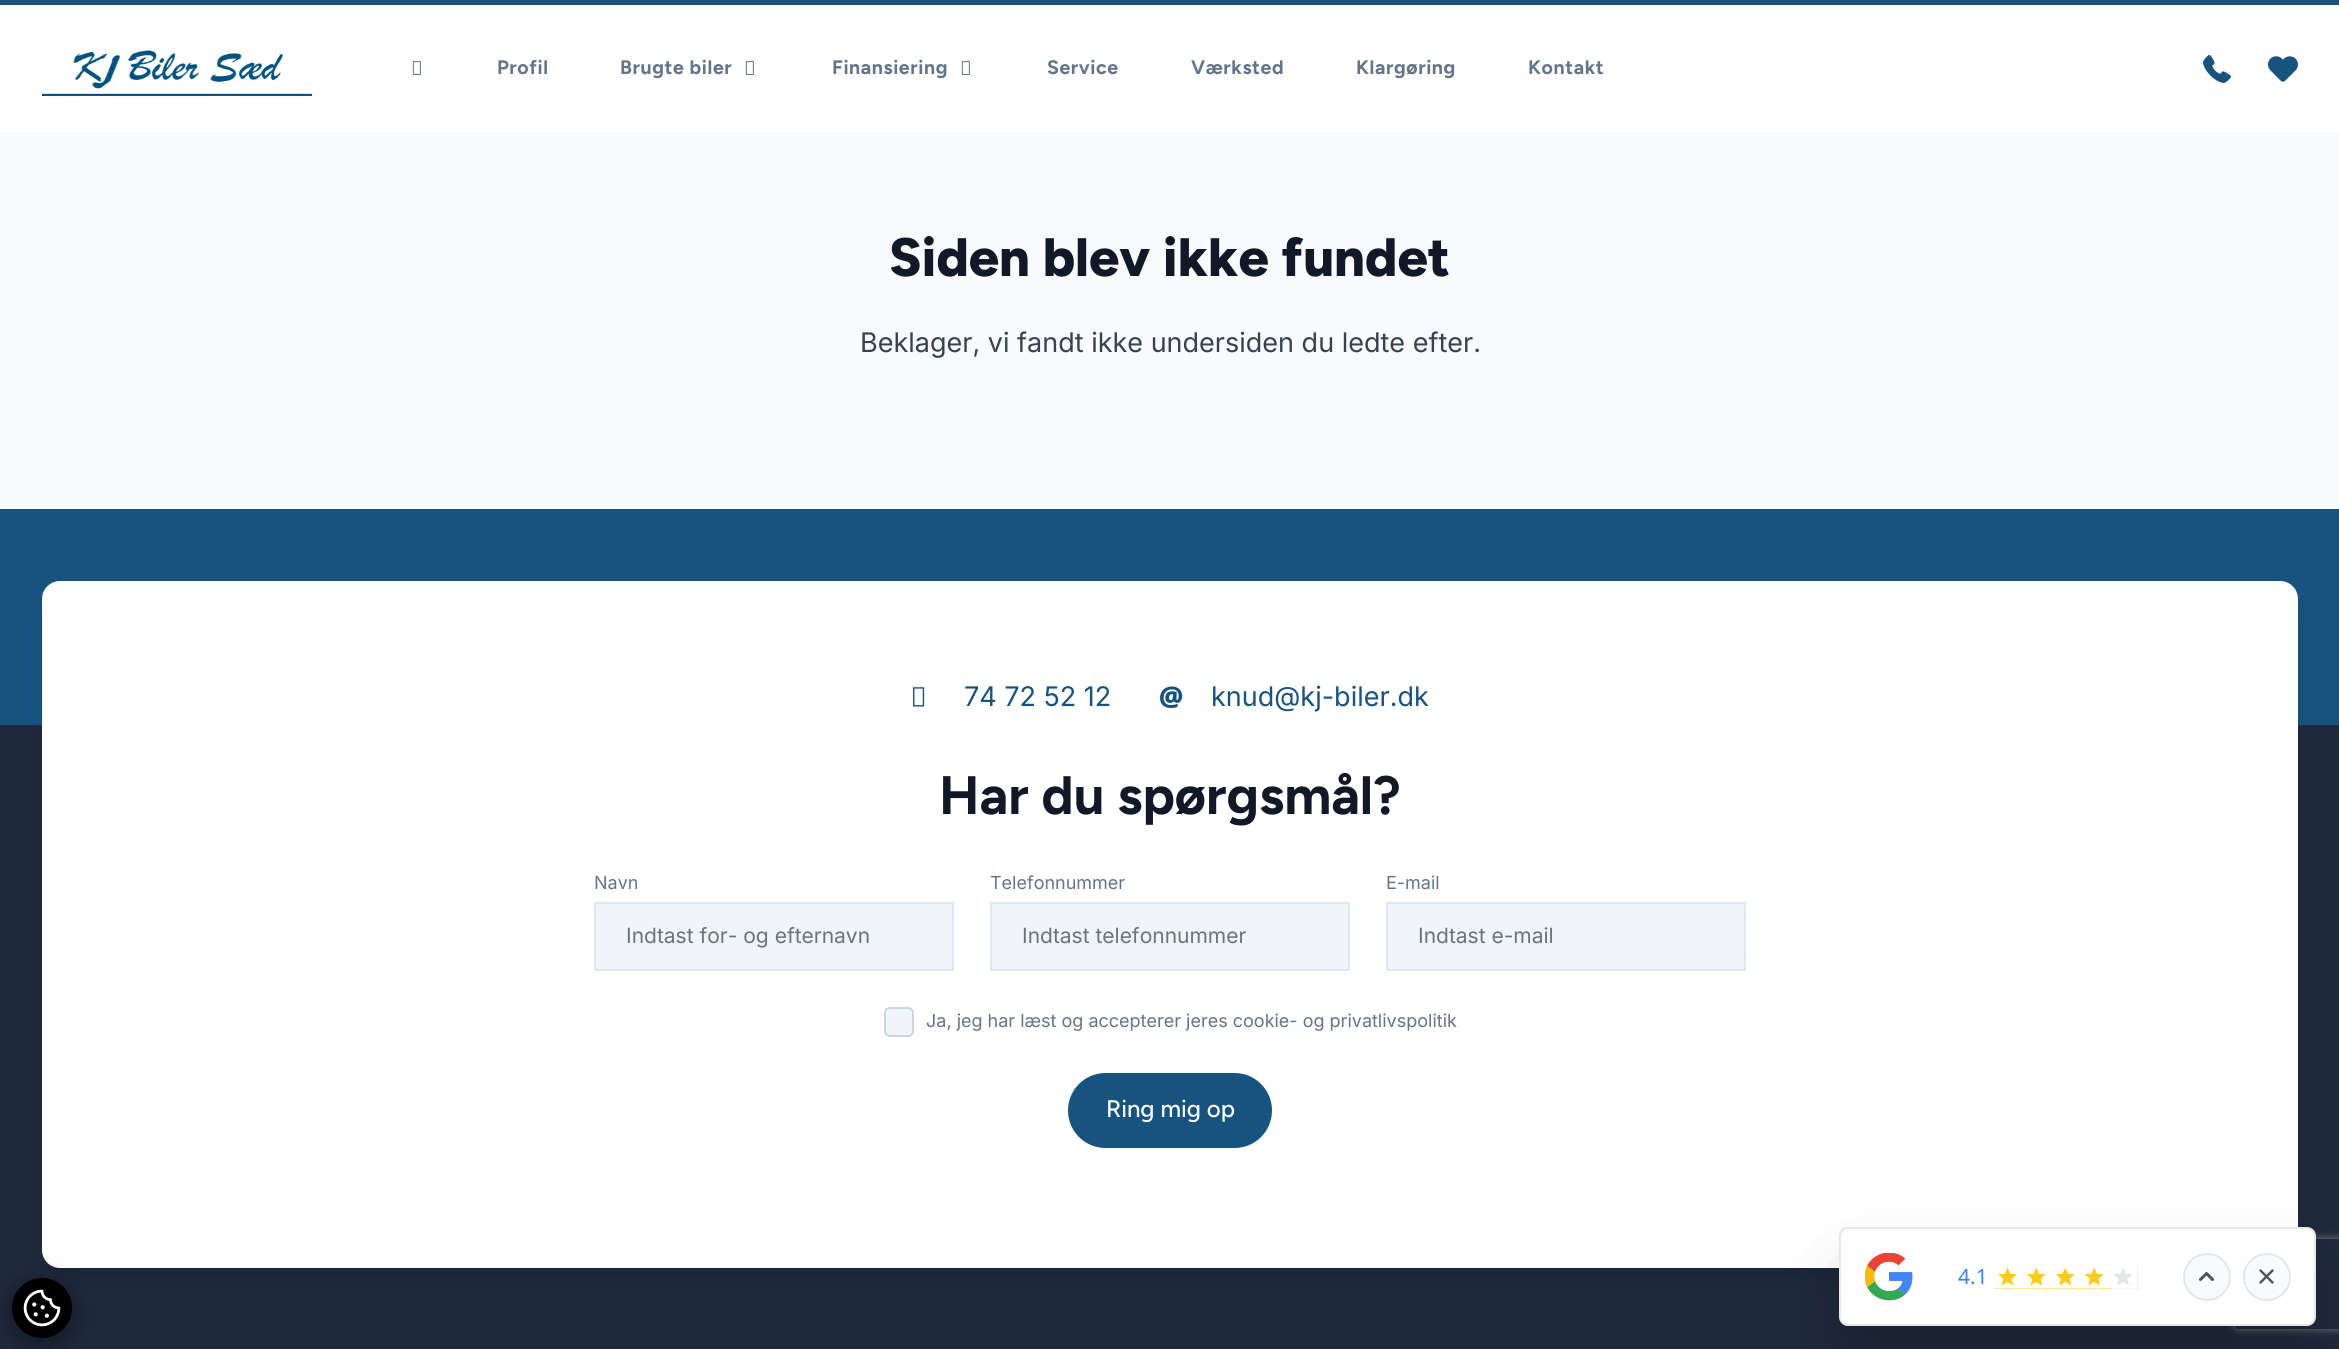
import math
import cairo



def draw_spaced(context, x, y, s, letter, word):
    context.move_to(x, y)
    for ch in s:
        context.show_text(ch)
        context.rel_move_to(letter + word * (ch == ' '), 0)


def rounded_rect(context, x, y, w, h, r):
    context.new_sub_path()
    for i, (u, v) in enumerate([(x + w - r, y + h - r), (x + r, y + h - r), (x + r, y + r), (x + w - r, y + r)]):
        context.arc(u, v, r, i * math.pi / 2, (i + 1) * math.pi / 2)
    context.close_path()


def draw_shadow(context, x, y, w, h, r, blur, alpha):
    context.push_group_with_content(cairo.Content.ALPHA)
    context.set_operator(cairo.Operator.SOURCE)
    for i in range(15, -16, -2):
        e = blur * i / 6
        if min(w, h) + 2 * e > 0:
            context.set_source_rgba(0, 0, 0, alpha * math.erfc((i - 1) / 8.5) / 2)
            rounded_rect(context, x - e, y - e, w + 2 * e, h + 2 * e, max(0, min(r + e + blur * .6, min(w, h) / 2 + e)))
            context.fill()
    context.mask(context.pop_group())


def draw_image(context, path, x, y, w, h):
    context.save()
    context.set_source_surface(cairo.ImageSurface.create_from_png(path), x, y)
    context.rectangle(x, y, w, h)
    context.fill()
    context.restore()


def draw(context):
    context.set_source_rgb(248 / 255, 250 / 255, 252 / 255)
    context.paint()
    context.set_source_rgb(1, 1, 1)
    context.rectangle(0, 5, 2339, 127)
    context.fill()
    context.set_source_rgb(22 / 255, 83 / 255, 126 / 255)
    context.rectangle(0, 0, 2339, 5)
    context.fill()
    draw_image(context, "images/1.png", 42, 50, 270, 46)
    draw_image(context, "images/2.png", 412, 61, 9, 14)
    draw_image(context, "images/2.png", 745, 61, 9, 14)
    draw_image(context, "images/2.png", 961, 61, 9, 14)
    draw_image(context, "images/3.png", 2203, 55, 28, 28)
    draw_image(context, "images/4.png", 2268, 56, 30, 26)
    context.rectangle(0, 509, 2339, 216)
    context.fill()
    context.set_source_rgb(30 / 255, 41 / 255, 59 / 255)
    context.rectangle(0, 725, 2339, 624)
    context.fill()
    context.set_source_rgb(0, 0, 0)
    draw_shadow(context, 48, 593, 2244, 675, 12, 4.5, 0.1)
    draw_shadow(context, 47, 600, 2247, 678, 14, 11, 0.1)
    context.set_source_rgb(1, 1, 1)
    rounded_rect(context, 42, 581, 2256, 687, 18)
    context.fill()
    draw_image(context, "images/5.png", 913, 687, 12, 20)
    context.set_source_rgb(241 / 255, 245 / 255, 249 / 255)
    context.rectangle(595, 903, 358, 67)
    context.fill_preserve()
    context.set_source_rgb(226 / 255, 232 / 255, 240 / 255)
    context.stroke()
    context.set_source_rgb(241 / 255, 245 / 255, 249 / 255)
    context.rectangle(991, 903, 358, 67)
    context.fill_preserve()
    context.set_source_rgb(226 / 255, 232 / 255, 240 / 255)
    context.stroke()
    context.set_source_rgb(241 / 255, 245 / 255, 249 / 255)
    context.rectangle(1387, 903, 358, 67)
    context.fill_preserve()
    context.set_source_rgb(226 / 255, 232 / 255, 240 / 255)
    context.stroke()
    context.set_source_rgb(241 / 255, 245 / 255, 249 / 255)
    rounded_rect(context, 885, 1008, 28, 28, 5)
    context.fill_preserve()
    context.set_source_rgb(203 / 255, 213 / 255, 225 / 255)
    context.stroke()
    context.set_source_rgb(22 / 255, 83 / 255, 126 / 255)
    rounded_rect(context, 1068, 1073, 204, 75, 37.5)
    context.fill()
    context.save()
    context.set_fill_rule(cairo.FillRule.EVEN_ODD)
    context.new_path()
    context.move_to(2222, 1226)
    context.line_to(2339, 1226)
    context.line_to(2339, 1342)
    context.line_to(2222, 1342)
    context.close_path()
    context.move_to(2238, 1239)
    context.line_to(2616, 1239)
    context.curve_to(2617.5, 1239, 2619, 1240.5, 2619, 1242)
    context.line_to(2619, 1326)
    context.curve_to(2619, 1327.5, 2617.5, 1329, 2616, 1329)
    context.line_to(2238, 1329)
    context.curve_to(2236.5, 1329, 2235, 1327.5, 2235, 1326)
    context.line_to(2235, 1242)
    context.curve_to(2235, 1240.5, 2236.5, 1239, 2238, 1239)
    context.close_path()
    context.clip()
    context.set_source_rgb(128 / 255, 128 / 255, 128 / 255)
    draw_shadow(context, 2235, 1239, 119, 90, 3, 4, 1)
    context.restore()
    context.set_source_rgb(0, 0, 0)
    draw_shadow(context, 12, 1284, 60, 60, 30, 12, 0.4)
    context.set_source_rgb(0, 0, 0)
    context.arc(42, 1308, 30, 0, 2 * math.pi)
    context.fill()
    draw_image(context, "images/6.png", 23, 1289, 38, 38)
    context.set_source_rgb(0, 0, 0)
    draw_shadow(context, 1857, 1283, 441, 63, 0, 37.5, 0.25)
    context.set_source_rgb(1, 1, 1)
    rounded_rect(context, 1840, 1228, 475, 97, 8)
    context.fill_preserve()
    context.set_source_rgb(229 / 255, 231 / 255, 235 / 255)
    context.stroke()
    draw_image(context, "images/7.png", 1865, 1253, 48, 48)
    context.set_source_rgb(250 / 255, 204 / 255, 21 / 255)
    context.rectangle(1994, 1267, 118, 22)
    context.fill()
    context.set_source_rgb(229 / 255, 231 / 255, 235 / 255)
    context.rectangle(2112, 1265, 26, 24)
    context.fill()
    draw_image(context, "images/8.png", 1994, 1265, 144, 24)
    context.set_source_rgb(249 / 255, 250 / 255, 251 / 255)
    context.arc(2207, 1277, 23, 0, 2 * math.pi)
    context.fill_preserve()
    context.set_source_rgb(229 / 255, 231 / 255, 235 / 255)
    context.stroke()
    draw_image(context, "images/9.png", 2199, 1272, 15, 9)
    context.set_source_rgb(249 / 255, 250 / 255, 251 / 255)
    context.arc(2267, 1277, 23, 0, 2 * math.pi)
    context.fill_preserve()
    context.set_source_rgb(229 / 255, 231 / 255, 235 / 255)
    context.stroke()
    draw_image(context, "images/10.png", 2259, 1269, 15, 15)
    context.select_font_face("Figtree", cairo.FontSlant.NORMAL, cairo.FontWeight.BOLD)
    context.set_font_size(19.5)
    context.set_source_rgb(100 / 255, 116 / 255, 139 / 255)
    draw_spaced(context, 497, 74, "Profil", 0.6, 0)
    draw_spaced(context, 620, 74, "Brugte biler", 0.6, 0)
    draw_spaced(context, 832, 74, "Finansiering", 0.6, 0)
    draw_spaced(context, 1047, 74, "Service", 0.6, 0)
    draw_spaced(context, 1191, 74, "Værksted", 0.6, 0)
    draw_spaced(context, 1356, 74, "Klargøring", 0.6, 0)
    draw_spaced(context, 1528, 74, "Kontakt", 0.6, 0)
    context.select_font_face("Figtree ExtraBold")
    context.set_font_size(54)
    context.set_source_rgb(17 / 255, 24 / 255, 39 / 255)
    context.move_to(889, 276)
    context.show_text("Siden blev ikke fundet")
    context.select_font_face("Inter")
    context.set_font_size(27)
    context.set_source_rgb(55 / 255, 65 / 255, 81 / 255)
    context.move_to(860, 352)
    context.show_text("Beklager, vi fandt ikke undersiden du ledte efter.")
    context.set_source_rgb(22 / 255, 83 / 255, 126 / 255)
    context.move_to(964, 706)
    context.show_text("74 72 52 12")
    context.select_font_face("Noto Sans Black")
    context.move_to(1159, 706)
    context.show_text("@")
    context.select_font_face("Inter")
    context.move_to(1211, 706)
    context.show_text("knud@kj-biler.dk")
    context.select_font_face("Figtree", cairo.FontSlant.NORMAL, cairo.FontWeight.BOLD)
    context.set_font_size(54)
    context.set_source_rgb(17 / 255, 24 / 255, 39 / 255)
    context.move_to(939, 814)
    context.show_text("Har du spørgsmål?")
    context.select_font_face("Inter")
    context.set_font_size(18)
    context.set_source_rgb(100 / 255, 116 / 255, 139 / 255)
    context.move_to(594, 889)
    context.show_text("Navn")
    context.set_font_size(21)
    context.set_source_rgb(107 / 255, 114 / 255, 128 / 255)
    context.move_to(626, 943)
    context.show_text("Indtast for- og efternavn")
    context.set_font_size(18)
    context.set_source_rgb(100 / 255, 116 / 255, 139 / 255)
    context.move_to(990, 889)
    context.show_text("Telefonnummer")
    context.set_font_size(21)
    context.set_source_rgb(107 / 255, 114 / 255, 128 / 255)
    context.move_to(1022, 943)
    context.show_text("Indtast telefonnummer")
    context.set_font_size(18)
    context.set_source_rgb(100 / 255, 116 / 255, 139 / 255)
    context.move_to(1386, 889)
    context.show_text("E-mail")
    context.set_font_size(21)
    context.set_source_rgb(107 / 255, 114 / 255, 128 / 255)
    context.move_to(1418, 943)
    context.show_text("Indtast e-mail")
    context.set_font_size(18)
    context.set_source_rgb(100 / 255, 116 / 255, 139 / 255)
    context.move_to(926, 1027)
    context.show_text("Ja, jeg har læst og accepterer jeres cookie- og privatlivspolitik")
    context.select_font_face("Figtree Medium")
    context.set_font_size(24)
    context.set_source_rgb(1, 1, 1)
    context.move_to(1106, 1117)
    context.show_text("Ring mig op")
    context.select_font_face("Noto Sans")
    context.set_font_size(21)
    context.set_source_rgb(59 / 255, 130 / 255, 246 / 255)
    context.move_to(1958, 1284)
    context.show_text("4.1")


surface = cairo.ImageSurface(cairo.Format.RGB24, 2339, 1349)
context = cairo.Context(surface)
options = cairo.FontOptions()
options.set_hint_metrics(cairo.HintMetrics.OFF)
options.set_hint_style(cairo.HintStyle.NONE)
context.set_font_options(options)
context.set_miter_limit(4)
draw(context)
surface.write_to_png("out.png")
